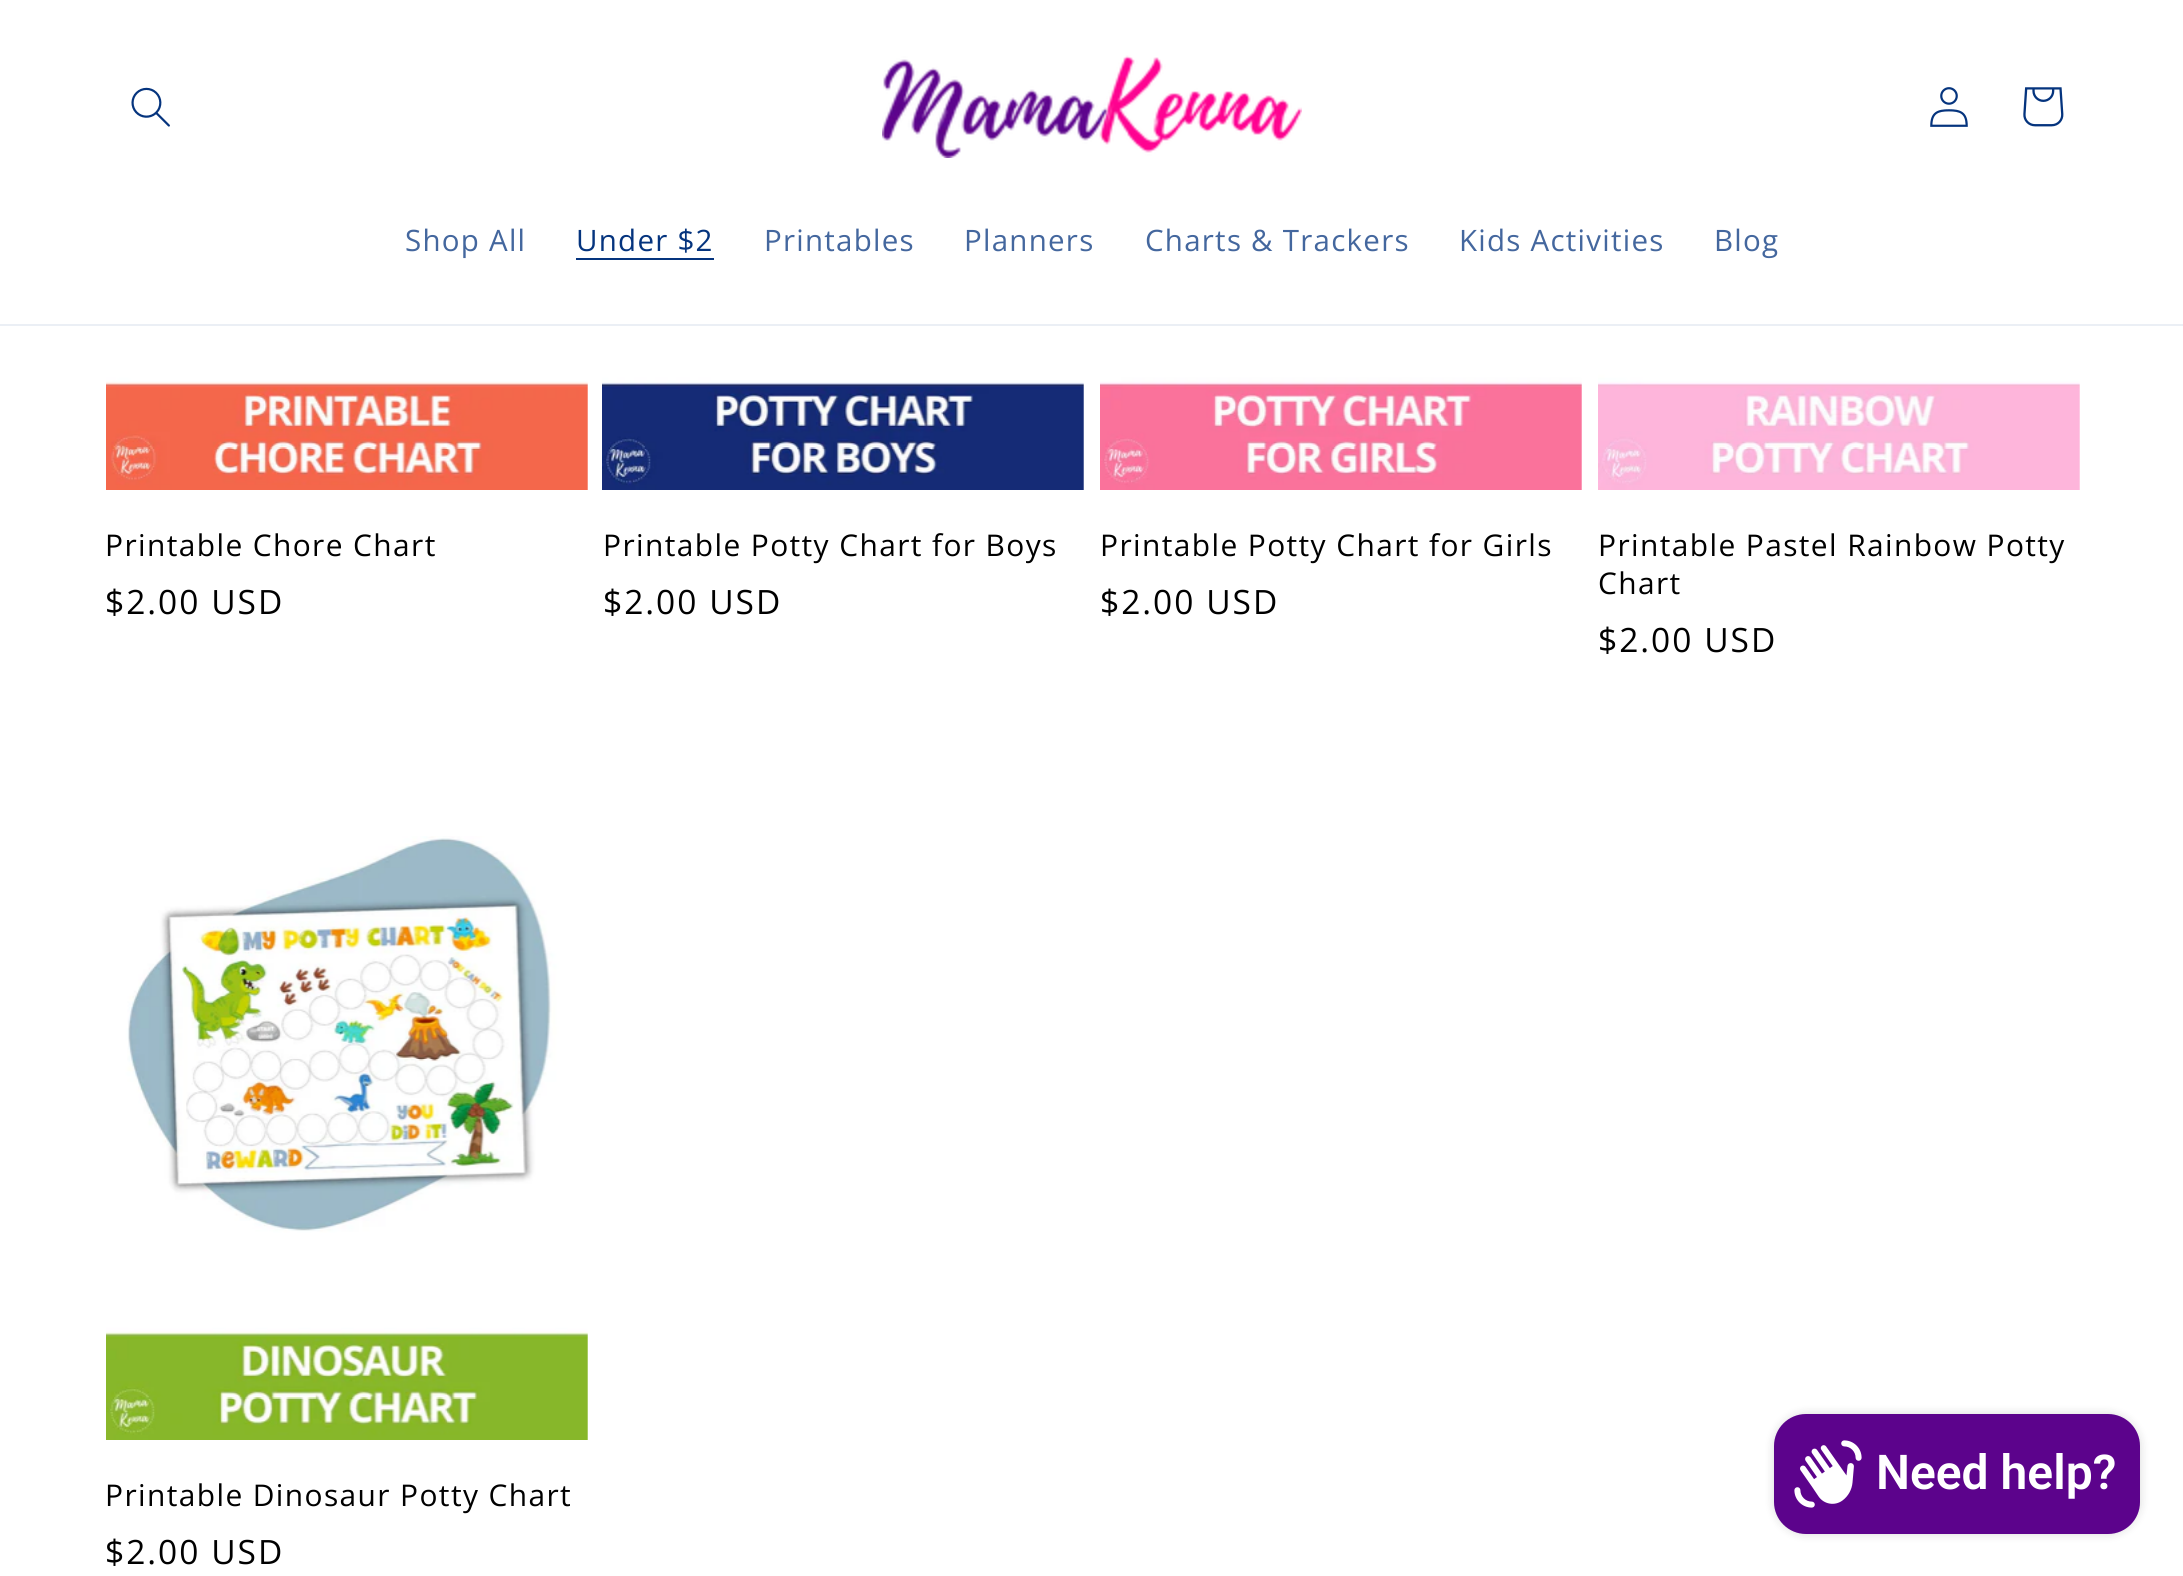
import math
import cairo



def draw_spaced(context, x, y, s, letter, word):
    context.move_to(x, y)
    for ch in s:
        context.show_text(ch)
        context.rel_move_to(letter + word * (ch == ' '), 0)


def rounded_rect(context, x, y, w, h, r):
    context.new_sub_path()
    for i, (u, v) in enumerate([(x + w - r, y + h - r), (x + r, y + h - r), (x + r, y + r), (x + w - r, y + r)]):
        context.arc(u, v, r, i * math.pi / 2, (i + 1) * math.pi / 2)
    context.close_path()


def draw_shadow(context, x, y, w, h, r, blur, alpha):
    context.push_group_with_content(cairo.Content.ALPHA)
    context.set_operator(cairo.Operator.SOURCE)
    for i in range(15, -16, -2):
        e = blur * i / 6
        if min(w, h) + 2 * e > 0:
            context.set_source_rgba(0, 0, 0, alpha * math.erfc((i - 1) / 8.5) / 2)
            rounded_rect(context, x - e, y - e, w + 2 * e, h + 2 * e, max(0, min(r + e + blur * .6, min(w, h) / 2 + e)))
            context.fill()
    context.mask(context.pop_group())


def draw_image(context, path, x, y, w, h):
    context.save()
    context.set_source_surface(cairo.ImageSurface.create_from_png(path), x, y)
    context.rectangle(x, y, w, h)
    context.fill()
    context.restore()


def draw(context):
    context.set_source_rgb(1, 1, 1)
    context.paint()
    context.set_source_rgb(235 / 255, 239 / 255, 245 / 255)
    context.rectangle(0, 324, 2183, 2)
    context.fill()
    draw_image(context, "images/1.png", 131, 87, 39, 40)
    draw_image(context, "images/2.png", 882, 55, 420, 103)
    draw_image(context, "images/3.png", 1930, 87, 38, 40)
    draw_image(context, "images/4.png", 2023, 87, 41, 40)
    context.set_source_rgb(5 / 255, 52 / 255, 126 / 255)
    context.rectangle(576, 258, 138, 2)
    context.fill()
    draw_image(context, "images/5.png", 106, 326, 482, 164)
    draw_image(context, "images/6.png", 602, 326, 482, 164)
    draw_image(context, "images/7.png", 1100, 326, 482, 164)
    draw_image(context, "images/8.png", 1598, 326, 482, 164)
    draw_image(context, "images/9.png", 106, 836, 482, 604)
    context.set_source_rgb(0, 0, 0)
    draw_shadow(context, 1774, 1414, 366, 120, 32, 5, 0.15)
    context.set_source_rgb(92 / 255, 3 / 255, 140 / 255)
    rounded_rect(context, 1774, 1414, 366, 120, 32)
    context.fill()
    draw_image(context, "images/10.png", 1794, 1440, 68, 68)
    context.select_font_face("Open Sans")
    context.set_font_size(29.5)
    context.set_source_rgb(68 / 255, 103 / 255, 158 / 255)
    draw_spaced(context, 405, 251, "Shop All", 1.25, 0)
    context.set_source_rgb(5 / 255, 52 / 255, 126 / 255)
    draw_spaced(context, 576, 251, "Under $2", 1.25, 0)
    context.set_source_rgb(68 / 255, 103 / 255, 158 / 255)
    draw_spaced(context, 764, 251, "Printables", 1.25, 0)
    draw_spaced(context, 964, 251, "Planners", 1.25, 0)
    draw_spaced(context, 1145, 251, "Charts & Trackers", 1.25, 0)
    draw_spaced(context, 1459, 251, "Kids Activities", 1.25, 0)
    draw_spaced(context, 1714, 251, "Blog", 1.25, 0)
    context.set_font_size(29.9)
    context.set_source_rgb(0, 0, 0)
    draw_spaced(context, 105, 556, "Printable Chore Chart", 1.4, 0)
    context.set_font_size(33.5)
    draw_spaced(context, 105, 614, "$2.00 USD", 2, 0)
    context.set_font_size(29.9)
    draw_spaced(context, 603, 556, "Printable Potty Chart for Boys", 1.4, 0)
    context.set_font_size(33.5)
    draw_spaced(context, 603, 614, "$2.00 USD", 2, 0)
    context.set_font_size(29.9)
    draw_spaced(context, 1100, 556, "Printable Potty Chart for Girls", 1.4, 0)
    context.set_font_size(33.5)
    draw_spaced(context, 1100, 614, "$2.00 USD", 2, 0)
    context.set_font_size(29.9)
    draw_spaced(context, 1598, 556, "Printable Pastel Rainbow Potty", 1.4, 0)
    draw_spaced(context, 1598, 594, "Chart", 1.4, 0)
    context.set_font_size(33.5)
    draw_spaced(context, 1598, 652, "$2.00 USD", 2, 0)
    context.set_font_size(29.9)
    draw_spaced(context, 105, 1506, "Printable Dinosaur Potty Chart", 1.4, 0)
    context.set_font_size(33.5)
    draw_spaced(context, 105, 1564, "$2.00 USD", 2, 0)
    context.select_font_face("Roboto SemiBold")
    context.set_font_size(48)
    context.set_source_rgb(1, 1, 1)
    context.move_to(1876, 1489)
    context.show_text("Need help?")


surface = cairo.ImageSurface(cairo.Format.RGB24, 2183, 1576)
context = cairo.Context(surface)
options = cairo.FontOptions()
options.set_hint_metrics(cairo.HintMetrics.OFF)
options.set_hint_style(cairo.HintStyle.NONE)
context.set_font_options(options)
context.set_miter_limit(4)
draw(context)
surface.write_to_png("out.png")
